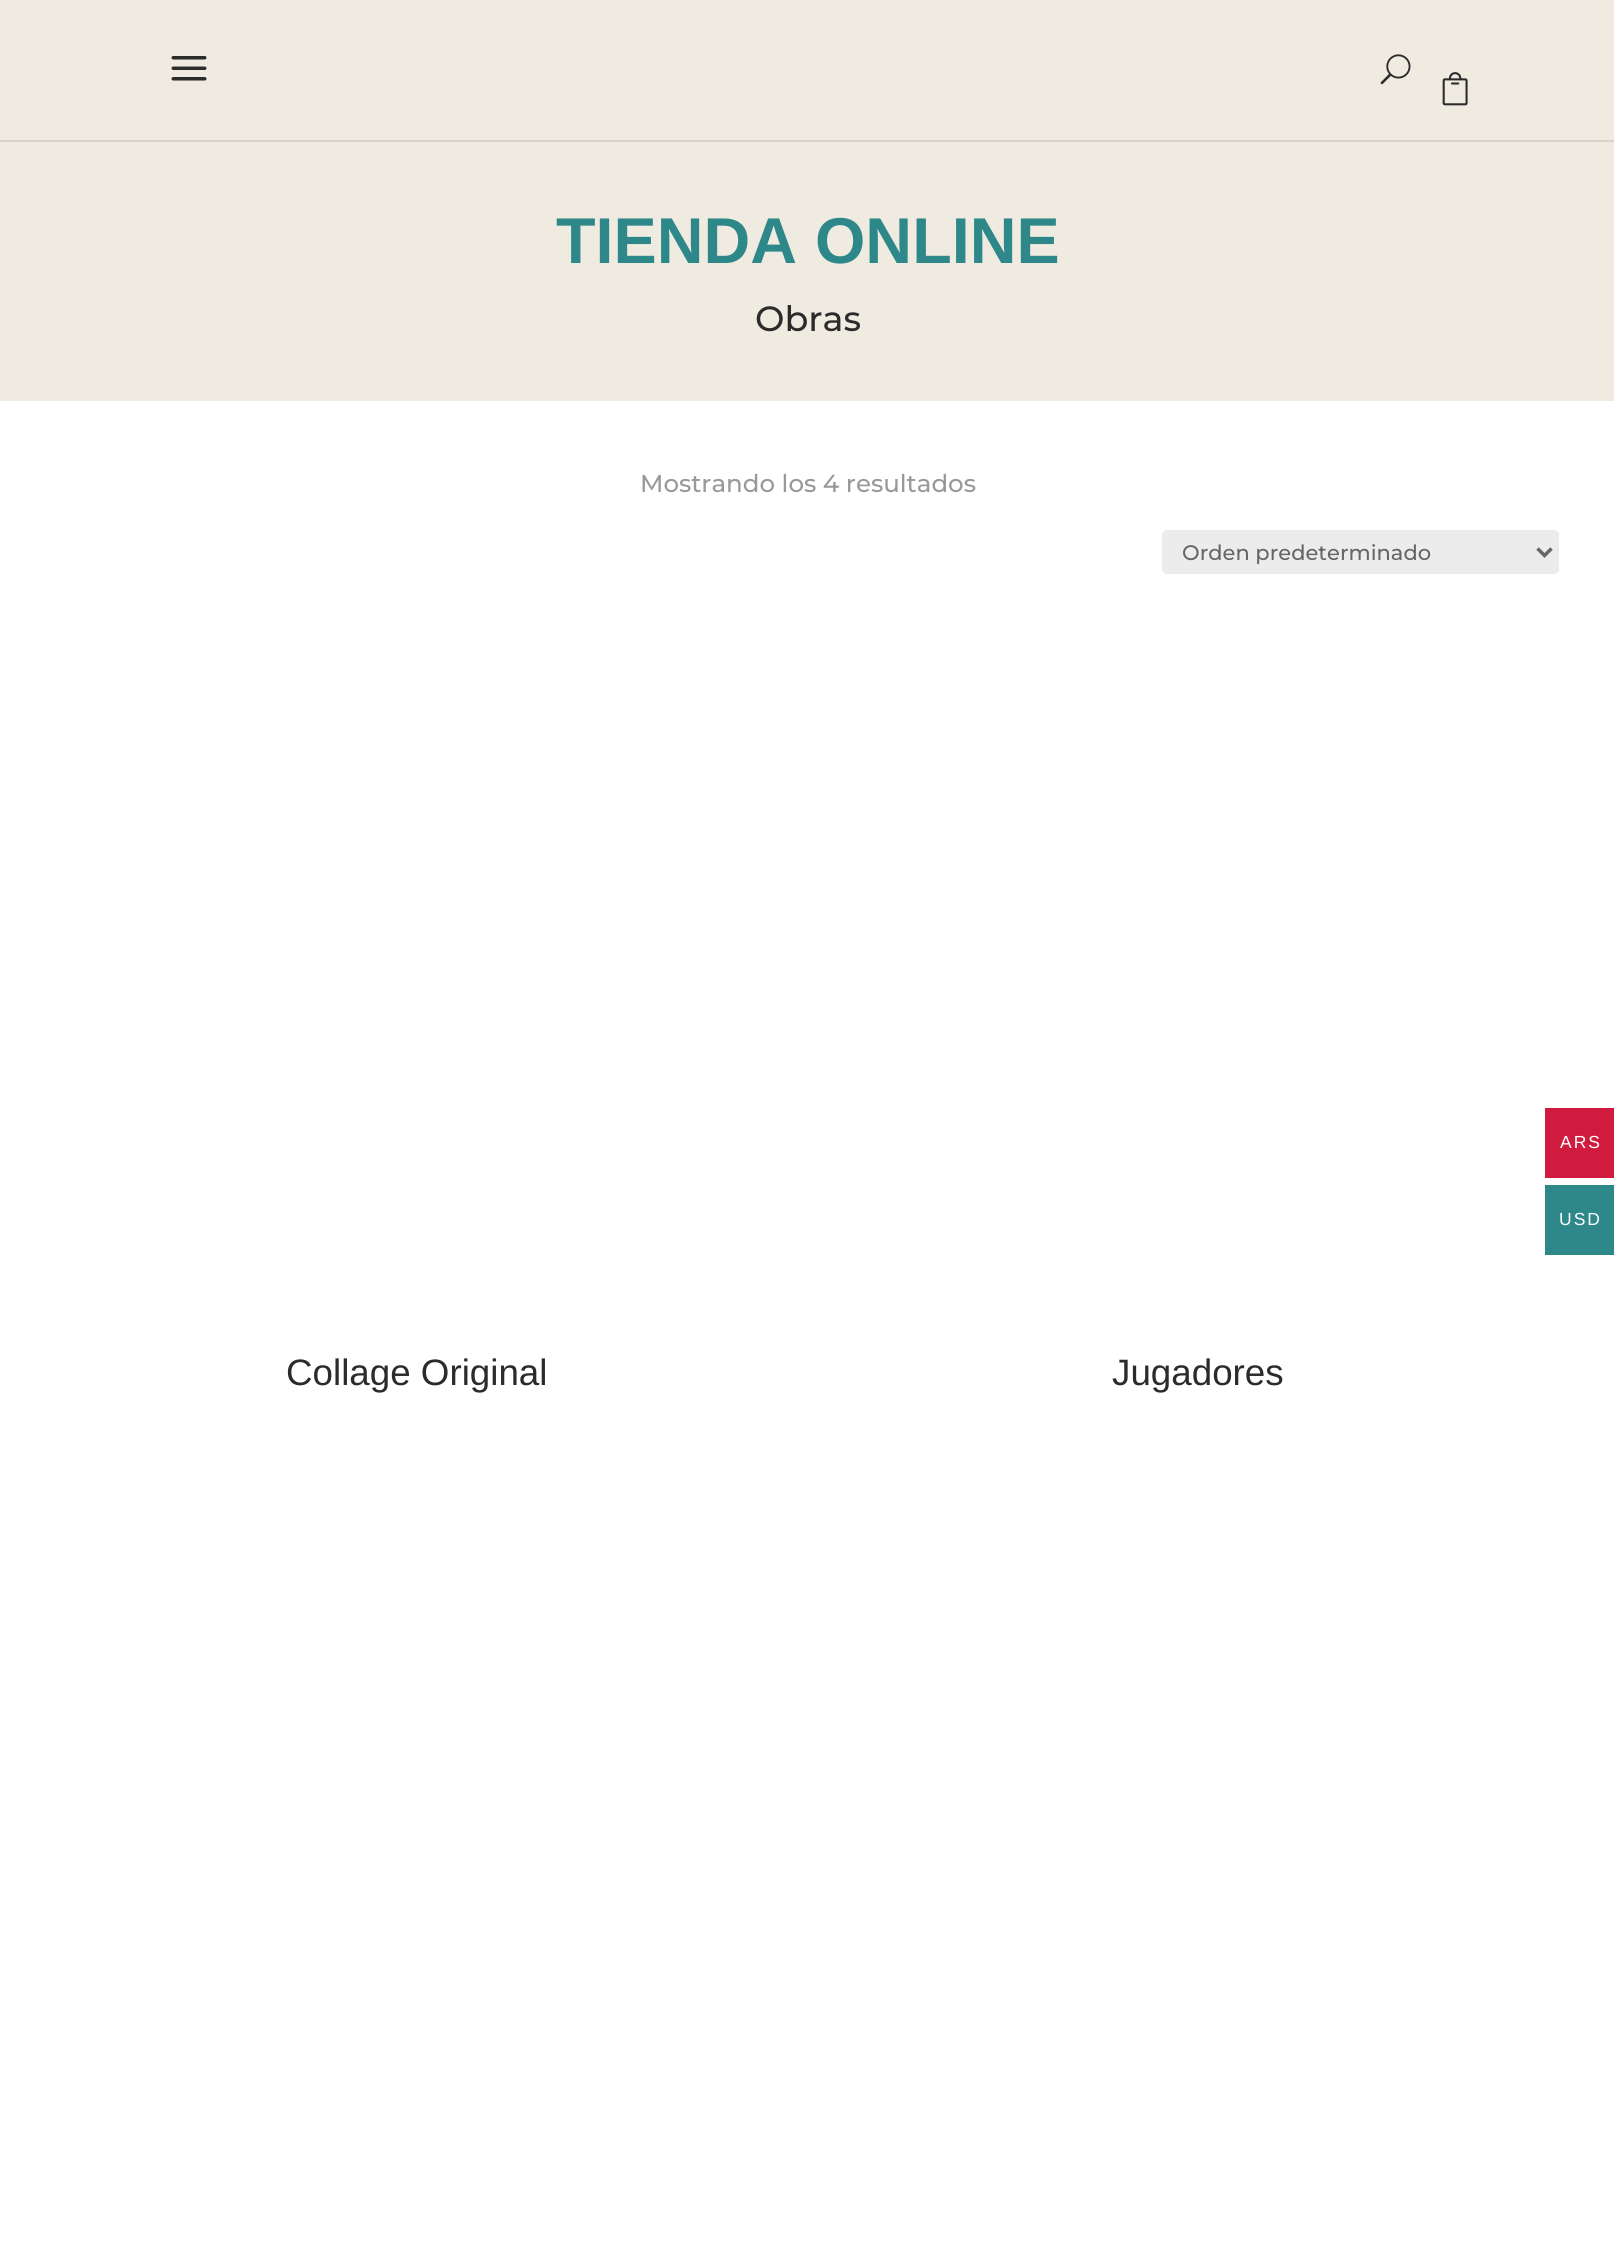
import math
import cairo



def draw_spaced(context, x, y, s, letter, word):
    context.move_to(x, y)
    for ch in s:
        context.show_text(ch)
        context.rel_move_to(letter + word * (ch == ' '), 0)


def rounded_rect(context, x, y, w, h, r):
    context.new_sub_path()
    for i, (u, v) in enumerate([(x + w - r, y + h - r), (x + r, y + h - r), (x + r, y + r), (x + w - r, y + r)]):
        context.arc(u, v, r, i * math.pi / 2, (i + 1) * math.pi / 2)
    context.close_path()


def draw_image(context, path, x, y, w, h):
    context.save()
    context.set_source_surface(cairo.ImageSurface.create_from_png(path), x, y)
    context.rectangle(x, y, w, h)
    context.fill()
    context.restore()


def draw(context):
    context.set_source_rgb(1, 1, 1)
    context.paint()
    context.set_source_rgb(216 / 255, 212 / 255, 203 / 255)
    context.rectangle(0, 140, 1614, 2)
    context.fill()
    context.set_source_rgb(240 / 255, 235 / 255, 225 / 255)
    context.rectangle(0, 0, 1614, 140)
    context.fill()
    draw_image(context, "images/1.png", 171, 56, 36, 25)
    draw_image(context, "images/2.png", 1380, 54, 31, 31)
    draw_image(context, "images/3.png", 1442, 72, 26, 34)
    context.rectangle(0, 142, 1614, 259)
    context.fill()
    context.set_source_rgb(236 / 255, 236 / 255, 236 / 255)
    rounded_rect(context, 1162, 530, 397, 44, 5)
    context.fill()
    context.new_path()
    context.move_to(1537.5, 548.5)
    context.line_to(1544.5, 555.5)
    context.line_to(1551.5, 548.5)
    context.set_source_rgb(102 / 255, 102 / 255, 102 / 255)
    context.set_line_width(3.5)
    context.stroke()
    context.set_source_rgb(209 / 255, 27 / 255, 62 / 255)
    context.rectangle(1545, 1108, 69, 70)
    context.fill()
    context.set_source_rgb(46 / 255, 136 / 255, 138 / 255)
    context.rectangle(1545, 1185, 69, 70)
    context.fill()
    context.select_font_face("Liberation Sans", cairo.FontSlant.NORMAL, cairo.FontWeight.BOLD)
    context.set_font_size(64.75)
    context.move_to(556, 263)
    context.show_text("TIENDA ONLINE")
    context.select_font_face("Montserrat Thin")
    context.set_font_size(35)
    context.set_source_rgb(43 / 255, 43 / 255, 43 / 255)
    context.move_to(755, 331)
    context.show_text("Obras")
    context.set_font_size(24.5)
    context.set_source_rgb(153 / 255, 153 / 255, 153 / 255)
    context.move_to(640, 492)
    context.show_text("Mostrando los 4 resultados")
    context.set_font_size(21)
    context.set_source_rgb(102 / 255, 102 / 255, 102 / 255)
    context.move_to(1182, 560)
    context.show_text("Orden predeterminado")
    context.select_font_face("Liberation Sans")
    context.set_font_size(36.75)
    context.set_source_rgb(43 / 255, 43 / 255, 43 / 255)
    context.move_to(286, 1385)
    context.show_text("Collage Original")
    context.move_to(1112, 1385)
    context.show_text("Jugadores")
    context.set_font_size(17.5)
    context.set_source_rgb(1, 1, 1)
    draw_spaced(context, 1560, 1148, "ARS", 2, 0)
    draw_spaced(context, 1559, 1225, "USD", 2, 0)


surface = cairo.ImageSurface(cairo.Format.RGB24, 1614, 2268)
context = cairo.Context(surface)
options = cairo.FontOptions()
options.set_hint_metrics(cairo.HintMetrics.OFF)
options.set_hint_style(cairo.HintStyle.NONE)
context.set_font_options(options)
context.set_miter_limit(4)
draw(context)
surface.write_to_png("out.png")
